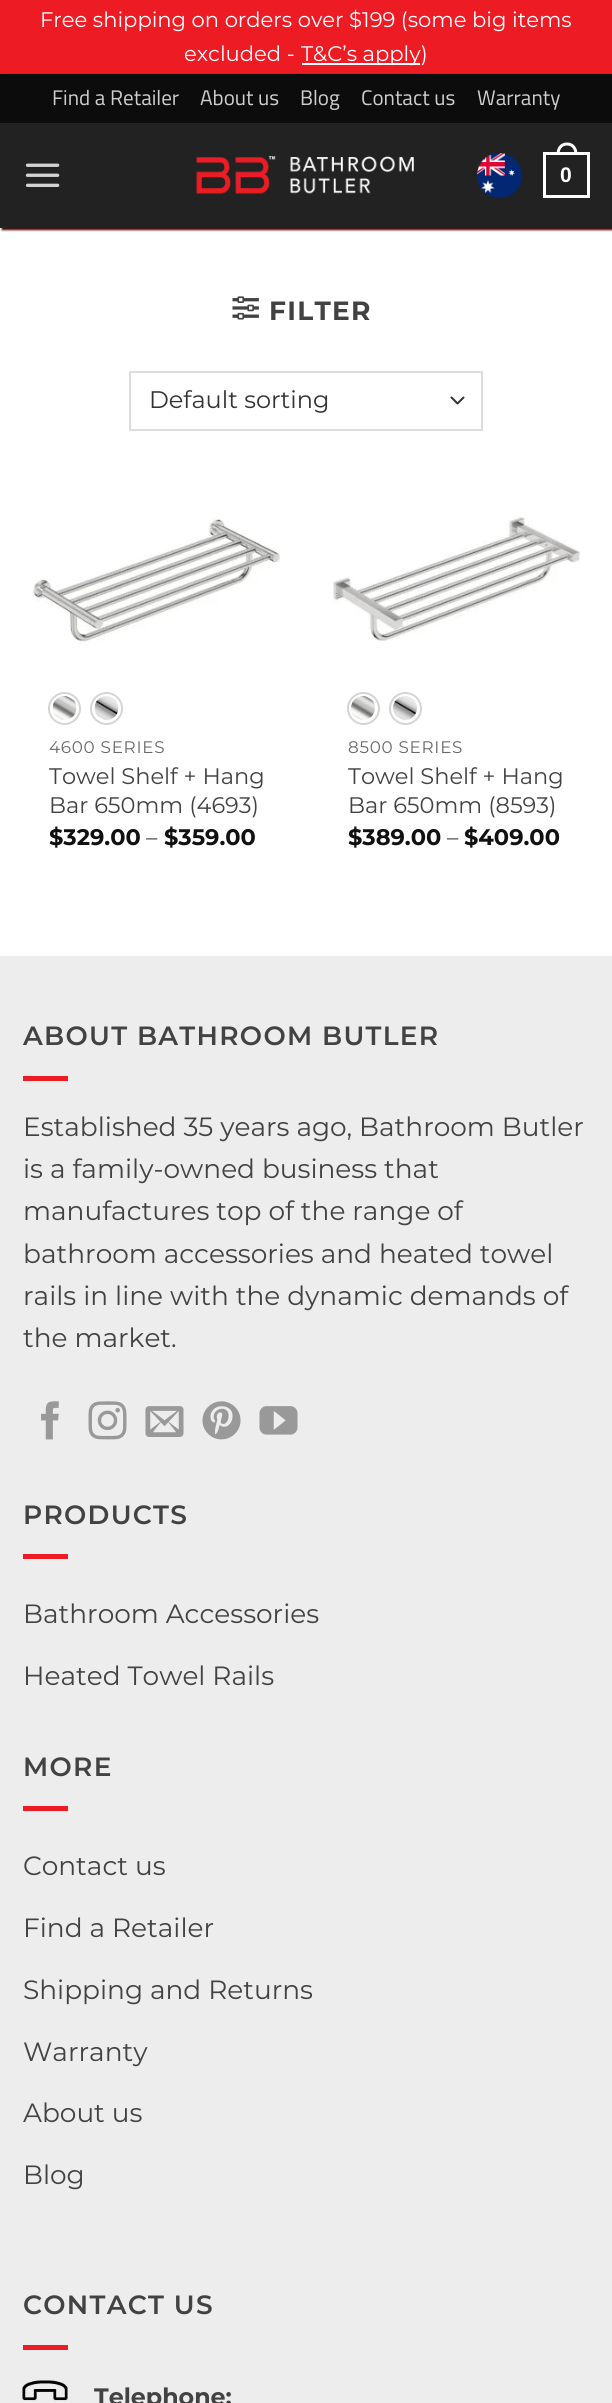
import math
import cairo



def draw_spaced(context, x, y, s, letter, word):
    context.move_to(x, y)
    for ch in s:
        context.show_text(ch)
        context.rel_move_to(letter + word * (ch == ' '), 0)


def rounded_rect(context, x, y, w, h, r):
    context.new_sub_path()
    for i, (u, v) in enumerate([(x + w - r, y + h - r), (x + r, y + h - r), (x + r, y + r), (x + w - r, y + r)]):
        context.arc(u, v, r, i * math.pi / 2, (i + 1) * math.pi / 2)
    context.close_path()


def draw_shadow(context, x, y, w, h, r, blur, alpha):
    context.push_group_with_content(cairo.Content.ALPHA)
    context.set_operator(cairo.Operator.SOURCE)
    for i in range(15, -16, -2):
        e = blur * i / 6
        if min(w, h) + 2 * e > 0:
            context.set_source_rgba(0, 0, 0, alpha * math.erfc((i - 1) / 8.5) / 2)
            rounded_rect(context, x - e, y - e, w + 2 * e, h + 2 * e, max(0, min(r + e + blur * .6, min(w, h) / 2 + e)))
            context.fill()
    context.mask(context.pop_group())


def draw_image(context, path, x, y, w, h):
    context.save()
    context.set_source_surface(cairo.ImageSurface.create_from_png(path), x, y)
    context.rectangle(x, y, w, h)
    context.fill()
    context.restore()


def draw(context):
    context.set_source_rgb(237 / 255, 28 / 255, 36 / 255)
    context.paint()
    context.set_source_rgb(1, 1, 1)
    context.rectangle(302, 63, 118, 2)
    context.fill()
    context.rectangle(0, 228, 612, 728)
    context.fill()
    context.set_source_rgb(60 / 255, 1 / 255, 1 / 255)
    draw_shadow(context, 2, 75, 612, 155, 0, 1, 1)
    context.set_source_rgb(12 / 255, 12 / 255, 12 / 255)
    context.rectangle(0, 74, 612, 49)
    context.fill()
    context.set_source_rgb(34 / 255, 34 / 255, 34 / 255)
    context.rectangle(0, 123, 612, 105)
    context.fill()
    draw_image(context, "images/1.png", 25, 163, 35, 24)
    draw_image(context, "images/2.png", 196, 156, 218, 38)
    draw_image(context, "images/3.png", 477, 153, 45, 45)
    context.rectangle(544.5, 153.5, 44, 43)
    context.set_source_rgb(1, 1, 1)
    context.set_line_width(3)
    context.stroke()
    context.set_fill_rule(cairo.FillRule.EVEN_ODD)
    context.new_path()
    context.move_to(567, 142.5)
    context.curve_to(574, 142.5, 577.5, 148, 577.5, 154.5)
    context.line_to(556.5, 154.5)
    context.curve_to(556.5, 148, 560, 142.5, 567, 142.5)
    context.close_path()
    context.move_to(567, 145.5)
    context.curve_to(572.5, 145.5, 574.5, 150, 574.5, 154.5)
    context.line_to(559.5, 154.5)
    context.curve_to(559.5, 150, 561.5, 145.5, 567, 145.5)
    context.close_path()
    context.fill()
    draw_image(context, "images/4.png", 232, 296, 27, 24)
    context.new_path()
    context.move_to(451.5, 397.5)
    context.line_to(457.5, 403.5)
    context.line_to(463.5, 397.5)
    context.set_source_rgb(51 / 255, 51 / 255, 51 / 255)
    context.set_line_width(2)
    context.set_line_cap(cairo.LineCap.ROUND)
    context.set_line_join(cairo.LineJoin.ROUND)
    context.stroke()
    context.rectangle(130, 372, 352, 58)
    context.set_source_rgb(221 / 255, 221 / 255, 221 / 255)
    context.set_line_cap(cairo.LineCap.BUTT)
    context.set_line_join(cairo.LineJoin.MITER)
    context.stroke()
    draw_image(context, "images/5.png", 33, 519, 247, 125)
    context.arc(64.5, 708.5, 15.5, 0, 2 * math.pi)
    context.set_source_rgb(213 / 255, 213 / 255, 213 / 255)
    context.stroke()
    draw_image(context, "images/6.png", 52, 696, 25, 24)
    context.arc(106.5, 708.5, 15.5, 0, 2 * math.pi)
    context.stroke()
    draw_image(context, "images/7.png", 94, 696, 25, 24)
    draw_image(context, "images/8.png", 333, 517, 248, 124)
    context.arc(363.5, 708.5, 15.5, 0, 2 * math.pi)
    context.stroke()
    draw_image(context, "images/9.png", 351, 696, 24, 24)
    context.arc(405.5, 708.5, 15.5, 0, 2 * math.pi)
    context.stroke()
    draw_image(context, "images/10.png", 393, 696, 24, 24)
    context.set_source_rgb(237 / 255, 237 / 255, 237 / 255)
    context.rectangle(0, 956, 612, 1447)
    context.fill()
    context.set_source_rgb(237 / 255, 28 / 255, 36 / 255)
    context.rectangle(23, 1076, 45, 5)
    context.fill()
    draw_image(context, "images/11.png", 41, 1401, 18, 39)
    draw_image(context, "images/12.png", 88, 1401, 39, 39)
    draw_image(context, "images/13.png", 145, 1406, 39, 31)
    draw_image(context, "images/14.png", 202, 1401, 39, 39)
    draw_image(context, "images/15.png", 259, 1406, 39, 29)
    context.rectangle(23, 1554, 45, 5)
    context.fill()
    context.rectangle(23, 1806, 45, 5)
    context.fill()
    context.rectangle(23, 2345, 45, 5)
    context.fill()
    draw_image(context, "images/16.png", 22, 2380, 46, 21)
    context.select_font_face("Montserrat")
    context.set_font_size(21.1)
    context.set_source_rgb(1, 1, 1)
    context.move_to(40, 27)
    context.show_text("Free shipping on orders over $199 (some big items")
    context.move_to(184, 61)
    context.show_text("excluded -")
    context.move_to(301, 61)
    context.show_text("T&C’s apply)")
    context.select_font_face("Titillium Web")
    context.set_source_rgb(206 / 255, 206 / 255, 206 / 255)
    context.move_to(52, 105)
    context.show_text("Find a Retailer")
    context.move_to(200, 105)
    context.show_text("About us")
    context.move_to(300, 105)
    context.show_text("Blog")
    context.move_to(361, 105)
    context.show_text("Contact us")
    context.move_to(477, 105)
    context.show_text("Warranty")
    context.select_font_face("Liberation Sans", cairo.FontSlant.NORMAL, cairo.FontWeight.BOLD)
    context.set_source_rgb(1, 1, 1)
    context.move_to(560, 182)
    context.show_text("0")
    context.select_font_face("Montserrat", cairo.FontSlant.NORMAL, cairo.FontWeight.BOLD)
    context.set_font_size(26.4)
    context.set_source_rgb(66 / 255, 66 / 255, 66 / 255)
    draw_spaced(context, 269, 320, "FILTER", 1.3, 0)
    context.select_font_face("Montserrat")
    context.set_font_size(24)
    context.set_source_rgb(51 / 255, 51 / 255, 51 / 255)
    context.move_to(149, 408)
    context.show_text("Default sorting")
    context.set_font_size(16.75)
    context.set_source_rgb(104 / 255, 104 / 255, 104 / 255)
    draw_spaced(context, 49, 753, "4600 SERIES", 0.75, 0)
    context.set_font_size(22.5)
    context.set_source_rgb(66 / 255, 66 / 255, 66 / 255)
    context.move_to(49, 784)
    context.show_text("Towel Shelf + Hang")
    context.move_to(49, 813)
    context.show_text("Bar 650mm (4693)")
    context.select_font_face("Montserrat", cairo.FontSlant.NORMAL, cairo.FontWeight.BOLD)
    context.set_source_rgb(17 / 255, 17 / 255, 17 / 255)
    context.move_to(49, 845)
    context.show_text("$329.00")
    context.select_font_face("Montserrat")
    context.set_source_rgb(66 / 255, 66 / 255, 66 / 255)
    context.move_to(146, 845)
    context.show_text("–")
    context.select_font_face("Montserrat", cairo.FontSlant.NORMAL, cairo.FontWeight.BOLD)
    context.set_source_rgb(17 / 255, 17 / 255, 17 / 255)
    context.move_to(164, 845)
    context.show_text("$359.00")
    context.select_font_face("Montserrat")
    context.set_font_size(16.75)
    context.set_source_rgb(104 / 255, 104 / 255, 104 / 255)
    draw_spaced(context, 348, 753, "8500 SERIES", 0.75, 0)
    context.set_font_size(22.5)
    context.set_source_rgb(66 / 255, 66 / 255, 66 / 255)
    context.move_to(348, 784)
    context.show_text("Towel Shelf + Hang")
    context.move_to(348, 813)
    context.show_text("Bar 650mm (8593)")
    context.select_font_face("Montserrat", cairo.FontSlant.NORMAL, cairo.FontWeight.BOLD)
    context.set_source_rgb(17 / 255, 17 / 255, 17 / 255)
    context.move_to(348, 845)
    context.show_text("$389.00")
    context.select_font_face("Montserrat")
    context.set_source_rgb(66 / 255, 66 / 255, 66 / 255)
    context.move_to(447, 845)
    context.show_text("–")
    context.select_font_face("Montserrat", cairo.FontSlant.NORMAL, cairo.FontWeight.BOLD)
    context.set_source_rgb(17 / 255, 17 / 255, 17 / 255)
    context.move_to(464, 845)
    context.show_text("$409.00")
    context.select_font_face("Montserrat SemiBold")
    context.set_font_size(26.4)
    context.set_source_rgb(66 / 255, 66 / 255, 66 / 255)
    draw_spaced(context, 23, 1045, "ABOUT BATHROOM BUTLER", 1.3, 0)
    context.select_font_face("Montserrat")
    context.move_to(23, 1136)
    context.show_text("Established 35 years ago, Bathroom Butler")
    context.move_to(23, 1178)
    context.show_text("is a family-owned business that")
    context.move_to(23, 1220)
    context.show_text("manufactures top of the range of")
    context.move_to(23, 1263)
    context.show_text("bathroom accessories and heated towel")
    context.move_to(23, 1305)
    context.show_text("rails in line with the dynamic demands of")
    context.move_to(23, 1347)
    context.show_text("the market.")
    context.select_font_face("Montserrat SemiBold")
    draw_spaced(context, 23, 1524, "PRODUCTS", 1.3, 0)
    context.select_font_face("Montserrat")
    context.move_to(23, 1623)
    context.show_text("Bathroom Accessories")
    context.move_to(23, 1685)
    context.show_text("Heated Towel Rails")
    context.select_font_face("Montserrat SemiBold")
    draw_spaced(context, 23, 1776, "MORE", 1.3, 0)
    context.select_font_face("Montserrat")
    context.move_to(23, 1875)
    context.show_text("Contact us")
    context.move_to(23, 1937)
    context.show_text("Find a Retailer")
    context.move_to(23, 1999)
    context.show_text("Shipping and Returns")
    context.move_to(23, 2061)
    context.show_text("Warranty")
    context.move_to(23, 2122)
    context.show_text("About us")
    context.move_to(23, 2184)
    context.show_text("Blog")
    context.select_font_face("Montserrat SemiBold")
    draw_spaced(context, 23, 2314, "CONTACT US", 1.3, 0)
    context.select_font_face("Montserrat", cairo.FontSlant.NORMAL, cairo.FontWeight.BOLD)
    context.set_font_size(23.75)
    context.move_to(94, 2405)
    context.show_text("Telephone:")


surface = cairo.ImageSurface(cairo.Format.RGB24, 612, 2403)
context = cairo.Context(surface)
options = cairo.FontOptions()
options.set_hint_metrics(cairo.HintMetrics.OFF)
options.set_hint_style(cairo.HintStyle.NONE)
context.set_font_options(options)
context.set_miter_limit(4)
draw(context)
surface.write_to_png("out.png")
